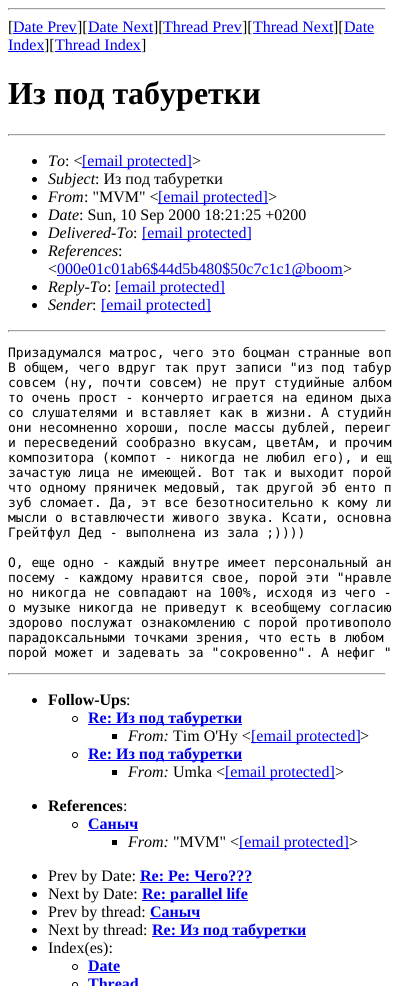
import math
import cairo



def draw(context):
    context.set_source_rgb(1, 1, 1)
    context.paint()
    context.set_source_rgb(159 / 255, 159 / 255, 159 / 255)
    context.rectangle(8, 8, 378, 1)
    context.fill()
    context.set_source_rgb(238 / 255, 238 / 255, 238 / 255)
    context.rectangle(385, 8, 1, 2)
    context.fill()
    context.rectangle(8, 9, 378, 1)
    context.fill()
    context.set_source_rgb(159 / 255, 159 / 255, 159 / 255)
    context.rectangle(8, 8, 1, 2)
    context.fill()
    context.set_source_rgb(0, 0, 238 / 255)
    context.rectangle(13, 33, 64, 1)
    context.fill()
    context.rectangle(88, 33, 65, 1)
    context.fill()
    context.rectangle(163, 33, 79, 1)
    context.fill()
    context.rectangle(253, 33, 80, 1)
    context.fill()
    context.rectangle(344, 33, 30, 1)
    context.fill()
    context.rectangle(8, 51, 36, 1)
    context.fill()
    context.rectangle(55, 51, 86, 1)
    context.fill()
    context.set_source_rgb(159 / 255, 159 / 255, 159 / 255)
    context.rectangle(8, 134, 378, 1)
    context.fill()
    context.set_source_rgb(238 / 255, 238 / 255, 238 / 255)
    context.rectangle(385, 134, 1, 2)
    context.fill()
    context.rectangle(8, 135, 378, 1)
    context.fill()
    context.set_source_rgb(159 / 255, 159 / 255, 159 / 255)
    context.rectangle(8, 134, 1, 2)
    context.fill()
    context.set_source_rgb(0, 0, 0)
    context.arc(34.5, 161.5, 2.5, 0, 2 * math.pi)
    context.fill()
    context.set_source_rgb(0, 0, 238 / 255)
    context.rectangle(82, 167, 110, 1)
    context.fill()
    context.set_source_rgb(0, 0, 0)
    context.arc(34.5, 179.5, 2.5, 0, 2 * math.pi)
    context.fill()
    context.arc(34.5, 197.5, 2.5, 0, 2 * math.pi)
    context.fill()
    context.set_source_rgb(0, 0, 238 / 255)
    context.rectangle(158, 203, 110, 1)
    context.fill()
    context.set_source_rgb(0, 0, 0)
    context.arc(34.5, 215.5, 2.5, 0, 2 * math.pi)
    context.fill()
    context.arc(34.5, 233.5, 2.5, 0, 2 * math.pi)
    context.fill()
    context.set_source_rgb(0, 0, 238 / 255)
    context.rectangle(142, 239, 109, 1)
    context.fill()
    context.set_source_rgb(0, 0, 0)
    context.arc(34.5, 251.5, 2.5, 0, 2 * math.pi)
    context.fill()
    context.set_source_rgb(0, 0, 238 / 255)
    context.rectangle(57, 275, 286, 1)
    context.fill()
    context.set_source_rgb(0, 0, 0)
    context.arc(34.5, 287.5, 2.5, 0, 2 * math.pi)
    context.fill()
    context.set_source_rgb(0, 0, 238 / 255)
    context.rectangle(115, 293, 110, 1)
    context.fill()
    context.set_source_rgb(0, 0, 0)
    context.arc(34.5, 305.5, 2.5, 0, 2 * math.pi)
    context.fill()
    context.set_source_rgb(0, 0, 238 / 255)
    context.rectangle(101, 311, 110, 1)
    context.fill()
    context.set_source_rgb(159 / 255, 159 / 255, 159 / 255)
    context.rectangle(8, 330, 378, 1)
    context.fill()
    context.set_source_rgb(238 / 255, 238 / 255, 238 / 255)
    context.rectangle(385, 330, 1, 2)
    context.fill()
    context.rectangle(8, 331, 378, 1)
    context.fill()
    context.set_source_rgb(159 / 255, 159 / 255, 159 / 255)
    context.rectangle(8, 330, 1, 2)
    context.fill()
    context.rectangle(8, 673, 378, 1)
    context.fill()
    context.set_source_rgb(238 / 255, 238 / 255, 238 / 255)
    context.rectangle(385, 673, 1, 2)
    context.fill()
    context.rectangle(8, 674, 378, 1)
    context.fill()
    context.set_source_rgb(159 / 255, 159 / 255, 159 / 255)
    context.rectangle(8, 673, 1, 2)
    context.fill()
    context.set_source_rgb(0, 0, 0)
    context.arc(34.5, 700.5, 2.5, 0, 2 * math.pi)
    context.fill()
    context.arc(75, 719, 2.5, 0, 2 * math.pi)
    context.set_line_width(1)
    context.stroke()
    context.set_source_rgb(0, 0, 238 / 255)
    context.rectangle(88, 724, 154, 1)
    context.fill()
    context.set_source_rgb(0, 0, 0)
    context.rectangle(112, 734, 5, 5)
    context.fill()
    context.set_source_rgb(0, 0, 238 / 255)
    context.rectangle(251, 742, 109, 1)
    context.fill()
    context.arc(75, 755, 2.5, 0, 2 * math.pi)
    context.set_source_rgb(0, 0, 0)
    context.stroke()
    context.set_source_rgb(0, 0, 238 / 255)
    context.rectangle(88, 760, 154, 1)
    context.fill()
    context.set_source_rgb(0, 0, 0)
    context.rectangle(112, 770, 5, 5)
    context.fill()
    context.set_source_rgb(0, 0, 238 / 255)
    context.rectangle(225, 778, 110, 1)
    context.fill()
    context.set_source_rgb(0, 0, 0)
    context.arc(34.5, 806.5, 2.5, 0, 2 * math.pi)
    context.fill()
    context.arc(75, 825, 2.5, 0, 2 * math.pi)
    context.stroke()
    context.set_source_rgb(0, 0, 238 / 255)
    context.rectangle(88, 830, 50, 1)
    context.fill()
    context.set_source_rgb(0, 0, 0)
    context.rectangle(112, 840, 5, 5)
    context.fill()
    context.set_source_rgb(0, 0, 238 / 255)
    context.rectangle(239, 848, 110, 1)
    context.fill()
    context.set_source_rgb(0, 0, 0)
    context.arc(34.5, 876.5, 2.5, 0, 2 * math.pi)
    context.fill()
    context.set_source_rgb(0, 0, 238 / 255)
    context.rectangle(140, 882, 112, 1)
    context.fill()
    context.set_source_rgb(0, 0, 0)
    context.arc(34.5, 894.5, 2.5, 0, 2 * math.pi)
    context.fill()
    context.set_source_rgb(0, 0, 238 / 255)
    context.rectangle(142, 900, 106, 1)
    context.fill()
    context.set_source_rgb(0, 0, 0)
    context.arc(34.5, 912.5, 2.5, 0, 2 * math.pi)
    context.fill()
    context.set_source_rgb(0, 0, 238 / 255)
    context.rectangle(150, 918, 50, 1)
    context.fill()
    context.set_source_rgb(0, 0, 0)
    context.arc(34.5, 930.5, 2.5, 0, 2 * math.pi)
    context.fill()
    context.set_source_rgb(0, 0, 238 / 255)
    context.rectangle(152, 936, 154, 1)
    context.fill()
    context.set_source_rgb(0, 0, 0)
    context.arc(34.5, 948.5, 2.5, 0, 2 * math.pi)
    context.fill()
    context.arc(75, 967, 2.5, 0, 2 * math.pi)
    context.stroke()
    context.set_source_rgb(0, 0, 238 / 255)
    context.rectangle(88, 972, 32, 1)
    context.fill()
    context.arc(75, 985, 2.5, 0, 2 * math.pi)
    context.set_source_rgb(0, 0, 0)
    context.stroke()
    context.select_font_face("Liberation Serif")
    context.set_font_size(16)
    context.move_to(8, 32)
    context.show_text("[")
    context.set_source_rgb(0, 0, 238 / 255)
    context.move_to(13, 32)
    context.show_text("Date Prev")
    context.set_source_rgb(0, 0, 0)
    context.move_to(77, 32)
    context.show_text("][")
    context.set_source_rgb(0, 0, 238 / 255)
    context.move_to(88, 32)
    context.show_text("Date Next")
    context.set_source_rgb(0, 0, 0)
    context.move_to(153, 32)
    context.show_text("][")
    context.set_source_rgb(0, 0, 238 / 255)
    context.move_to(163, 32)
    context.show_text("Thread Prev")
    context.set_source_rgb(0, 0, 0)
    context.move_to(242, 32)
    context.show_text("][")
    context.set_source_rgb(0, 0, 238 / 255)
    context.move_to(253, 32)
    context.show_text("Thread Next")
    context.set_source_rgb(0, 0, 0)
    context.move_to(333, 32)
    context.show_text("][")
    context.set_source_rgb(0, 0, 238 / 255)
    context.move_to(344, 32)
    context.show_text("Date")
    context.move_to(8, 50)
    context.show_text("Index")
    context.set_source_rgb(0, 0, 0)
    context.move_to(44, 50)
    context.show_text("][")
    context.set_source_rgb(0, 0, 238 / 255)
    context.move_to(55, 50)
    context.show_text("Thread Index")
    context.set_source_rgb(0, 0, 0)
    context.move_to(141, 50)
    context.show_text("]")
    context.select_font_face("Liberation Serif", cairo.FontSlant.NORMAL, cairo.FontWeight.BOLD)
    context.set_font_size(32)
    context.move_to(8, 104)
    context.show_text("Из под табуретки")
    context.select_font_face("Liberation Serif", cairo.FontSlant.ITALIC)
    context.set_font_size(16)
    context.move_to(48, 166)
    context.show_text("To")
    context.select_font_face("Liberation Serif")
    context.move_to(65, 166)
    context.show_text(": <")
    context.set_source_rgb(0, 0, 238 / 255)
    context.move_to(82, 166)
    context.show_text("[email protected]")
    context.set_source_rgb(0, 0, 0)
    context.move_to(192, 166)
    context.show_text(">")
    context.select_font_face("Liberation Serif", cairo.FontSlant.ITALIC)
    context.move_to(48, 184)
    context.show_text("Subject")
    context.select_font_face("Liberation Serif")
    context.move_to(95, 184)
    context.show_text(": Из под табуретки")
    context.select_font_face("Liberation Serif", cairo.FontSlant.ITALIC)
    context.move_to(48, 202)
    context.show_text("From")
    context.select_font_face("Liberation Serif")
    context.move_to(84, 202)
    context.show_text(": \"MVM\" <")
    context.set_source_rgb(0, 0, 238 / 255)
    context.move_to(158, 202)
    context.show_text("[email protected]")
    context.set_source_rgb(0, 0, 0)
    context.move_to(268, 202)
    context.show_text(">")
    context.select_font_face("Liberation Serif", cairo.FontSlant.ITALIC)
    context.move_to(48, 220)
    context.show_text("Date")
    context.select_font_face("Liberation Serif")
    context.move_to(79, 220)
    context.show_text(": Sun, 10 Sep 2000 18:21:25 +0200")
    context.select_font_face("Liberation Serif", cairo.FontSlant.ITALIC)
    context.move_to(48, 238)
    context.show_text("Delivered-To")
    context.select_font_face("Liberation Serif")
    context.move_to(133, 238)
    context.show_text(":")
    context.set_source_rgb(0, 0, 238 / 255)
    context.move_to(142, 238)
    context.show_text("[email protected]")
    context.select_font_face("Liberation Serif", cairo.FontSlant.ITALIC)
    context.set_source_rgb(0, 0, 0)
    context.move_to(48, 256)
    context.show_text("References")
    context.select_font_face("Liberation Serif")
    context.move_to(118, 256)
    context.show_text(":")
    context.move_to(48, 274)
    context.show_text("<")
    context.set_source_rgb(0, 0, 238 / 255)
    context.move_to(57, 274)
    context.show_text("000e01c01ab6$44d5b480$50c7c1c1@boom")
    context.set_source_rgb(0, 0, 0)
    context.move_to(343, 274)
    context.show_text(">")
    context.select_font_face("Liberation Serif", cairo.FontSlant.ITALIC)
    context.move_to(48, 292)
    context.show_text("Reply-To")
    context.select_font_face("Liberation Serif")
    context.move_to(107, 292)
    context.show_text(":")
    context.set_source_rgb(0, 0, 238 / 255)
    context.move_to(115, 292)
    context.show_text("[email protected]")
    context.select_font_face("Liberation Serif", cairo.FontSlant.ITALIC)
    context.set_source_rgb(0, 0, 0)
    context.move_to(48, 310)
    context.show_text("Sender")
    context.select_font_face("Liberation Serif")
    context.move_to(92, 310)
    context.show_text(":")
    context.set_source_rgb(0, 0, 238 / 255)
    context.move_to(101, 310)
    context.show_text("[email protected]")
    context.select_font_face("DejaVu Sans Mono")
    context.set_font_size(13)
    context.set_source_rgb(0, 0, 0)
    context.move_to(8, 357)
    context.show_text("Призадумался матрос, чего это боцман странные воп")
    context.move_to(8, 372)
    context.show_text("В общем, чего вдруг так прут записи \"из под табур")
    context.move_to(8, 387)
    context.show_text("совсем (ну, почти совсем) не прут студийные албом")
    context.move_to(8, 402)
    context.show_text("то очень прост - кончерто играется на едином дыха")
    context.move_to(8, 417)
    context.show_text("со слушателями и вставляет как в жизни. А студийн")
    context.move_to(8, 432)
    context.show_text("они несомненно хороши, после массы дублей, переиг")
    context.move_to(8, 447)
    context.show_text("и пересведений сообразно вкусам, цветАм, и прочим")
    context.move_to(8, 462)
    context.show_text("композитора (компот - никогда не любил его), и ещ")
    context.move_to(8, 477)
    context.show_text("зачастую лица не имеющей. Вот так и выходит порой")
    context.move_to(8, 492)
    context.show_text("что одному пряничек медовый, так другой эб енто п")
    context.move_to(8, 507)
    context.show_text("зуб сломает. Да, эт все безотносительно к кому ли")
    context.move_to(8, 522)
    context.show_text("мысли о вставлючести живого звука. Ксати, основна")
    context.move_to(8, 537)
    context.show_text("Грейтфул Дед - выполнена из зала ;))))")
    context.move_to(8, 567)
    context.show_text("О, еще одно - каждый внутре имеет персональный ан")
    context.move_to(8, 582)
    context.show_text("посему - каждому нравится свое, порой эти \"нравле")
    context.move_to(8, 597)
    context.show_text("но никогда не совпадают на 100%, исходя из чего -")
    context.move_to(8, 612)
    context.show_text("о музыке никогда не приведут к всеобщему согласию")
    context.move_to(8, 627)
    context.show_text("здорово послужат ознакомлению с порой противополо")
    context.move_to(8, 642)
    context.show_text("парадоксальными точками зрения, что есть в любом")
    context.move_to(8, 657)
    context.show_text("порой может и задевать за \"сокровенно\". А нефиг \"")
    context.select_font_face("Liberation Serif", cairo.FontSlant.NORMAL, cairo.FontWeight.BOLD)
    context.set_font_size(16)
    context.move_to(48, 705)
    context.show_text("Follow-Ups")
    context.select_font_face("Liberation Serif")
    context.move_to(126, 705)
    context.show_text(":")
    context.select_font_face("Liberation Serif", cairo.FontSlant.NORMAL, cairo.FontWeight.BOLD)
    context.set_source_rgb(0, 0, 238 / 255)
    context.move_to(88, 723)
    context.show_text("Re: Из под табуретки")
    context.select_font_face("Liberation Serif", cairo.FontSlant.ITALIC)
    context.set_source_rgb(0, 0, 0)
    context.move_to(128, 741)
    context.show_text("From:")
    context.select_font_face("Liberation Serif")
    context.move_to(173, 741)
    context.show_text("Tim O'Hy <")
    context.set_source_rgb(0, 0, 238 / 255)
    context.move_to(251, 741)
    context.show_text("[email protected]")
    context.set_source_rgb(0, 0, 0)
    context.move_to(360, 741)
    context.show_text(">")
    context.select_font_face("Liberation Serif", cairo.FontSlant.NORMAL, cairo.FontWeight.BOLD)
    context.set_source_rgb(0, 0, 238 / 255)
    context.move_to(88, 759)
    context.show_text("Re: Из под табуретки")
    context.select_font_face("Liberation Serif", cairo.FontSlant.ITALIC)
    context.set_source_rgb(0, 0, 0)
    context.move_to(128, 777)
    context.show_text("From:")
    context.select_font_face("Liberation Serif")
    context.move_to(173, 777)
    context.show_text("Umka <")
    context.set_source_rgb(0, 0, 238 / 255)
    context.move_to(225, 777)
    context.show_text("[email protected]")
    context.set_source_rgb(0, 0, 0)
    context.move_to(335, 777)
    context.show_text(">")
    context.select_font_face("Liberation Serif", cairo.FontSlant.NORMAL, cairo.FontWeight.BOLD)
    context.move_to(48, 811)
    context.show_text("References")
    context.select_font_face("Liberation Serif")
    context.move_to(123, 811)
    context.show_text(":")
    context.select_font_face("Liberation Serif", cairo.FontSlant.NORMAL, cairo.FontWeight.BOLD)
    context.set_source_rgb(0, 0, 238 / 255)
    context.move_to(88, 829)
    context.show_text("Саныч")
    context.select_font_face("Liberation Serif", cairo.FontSlant.ITALIC)
    context.set_source_rgb(0, 0, 0)
    context.move_to(128, 847)
    context.show_text("From:")
    context.select_font_face("Liberation Serif")
    context.move_to(173, 847)
    context.show_text("\"MVM\" <")
    context.set_source_rgb(0, 0, 238 / 255)
    context.move_to(239, 847)
    context.show_text("[email protected]")
    context.set_source_rgb(0, 0, 0)
    context.move_to(349, 847)
    context.show_text(">")
    context.move_to(48, 881)
    context.show_text("Prev by Date:")
    context.select_font_face("Liberation Serif", cairo.FontSlant.NORMAL, cairo.FontWeight.BOLD)
    context.set_source_rgb(0, 0, 238 / 255)
    context.move_to(140, 881)
    context.show_text("Re: Ре: Чего???")
    context.select_font_face("Liberation Serif")
    context.set_source_rgb(0, 0, 0)
    context.move_to(48, 899)
    context.show_text("Next by Date:")
    context.select_font_face("Liberation Serif", cairo.FontSlant.NORMAL, cairo.FontWeight.BOLD)
    context.set_source_rgb(0, 0, 238 / 255)
    context.move_to(142, 899)
    context.show_text("Re: parallel life")
    context.select_font_face("Liberation Serif")
    context.set_source_rgb(0, 0, 0)
    context.move_to(48, 917)
    context.show_text("Prev by thread:")
    context.select_font_face("Liberation Serif", cairo.FontSlant.NORMAL, cairo.FontWeight.BOLD)
    context.set_source_rgb(0, 0, 238 / 255)
    context.move_to(150, 917)
    context.show_text("Саныч")
    context.select_font_face("Liberation Serif")
    context.set_source_rgb(0, 0, 0)
    context.move_to(48, 935)
    context.show_text("Next by thread:")
    context.select_font_face("Liberation Serif", cairo.FontSlant.NORMAL, cairo.FontWeight.BOLD)
    context.set_source_rgb(0, 0, 238 / 255)
    context.move_to(152, 935)
    context.show_text("Re: Из под табуретки")
    context.select_font_face("Liberation Serif")
    context.set_source_rgb(0, 0, 0)
    context.move_to(48, 953)
    context.show_text("Index(es):")
    context.select_font_face("Liberation Serif", cairo.FontSlant.NORMAL, cairo.FontWeight.BOLD)
    context.set_source_rgb(0, 0, 238 / 255)
    context.move_to(88, 971)
    context.show_text("Date")
    context.move_to(88, 989)
    context.show_text("Thread")


surface = cairo.ImageSurface(cairo.Format.RGB24, 394, 986)
context = cairo.Context(surface)
options = cairo.FontOptions()
options.set_hint_metrics(cairo.HintMetrics.OFF)
options.set_hint_style(cairo.HintStyle.NONE)
context.set_font_options(options)
context.set_miter_limit(4)
draw(context)
surface.write_to_png("out.png")
